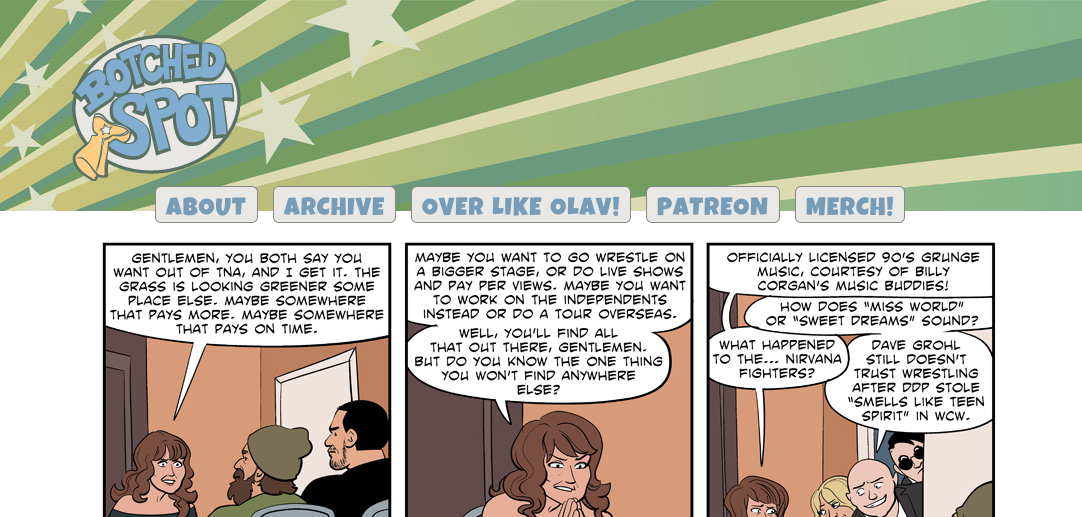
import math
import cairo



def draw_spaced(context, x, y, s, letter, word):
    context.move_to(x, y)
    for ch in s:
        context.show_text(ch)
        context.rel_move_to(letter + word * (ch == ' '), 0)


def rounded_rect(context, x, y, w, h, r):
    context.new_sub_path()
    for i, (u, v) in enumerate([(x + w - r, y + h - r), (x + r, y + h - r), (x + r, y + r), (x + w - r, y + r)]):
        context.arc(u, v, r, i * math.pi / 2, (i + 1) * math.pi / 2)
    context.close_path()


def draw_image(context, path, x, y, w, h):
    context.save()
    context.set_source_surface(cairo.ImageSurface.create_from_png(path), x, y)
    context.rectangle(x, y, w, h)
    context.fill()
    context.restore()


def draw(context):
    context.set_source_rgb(1, 1, 1)
    context.paint()
    draw_image(context, "images/1.png", 0, 0, 1082, 211)
    draw_image(context, "images/2.png", 71, 35, 170, 146)
    context.set_source_rgb(234 / 255, 232 / 255, 229 / 255)
    rounded_rect(context, 155.5, 186.5, 102, 36, 5.5)
    context.fill_preserve()
    context.set_source_rgb(136 / 255, 136 / 255, 136 / 255)
    context.set_line_width(1)
    context.stroke()
    context.set_source_rgb(234 / 255, 232 / 255, 229 / 255)
    rounded_rect(context, 273.5, 186.5, 122, 36, 5.5)
    context.fill_preserve()
    context.set_source_rgb(136 / 255, 136 / 255, 136 / 255)
    context.stroke()
    context.set_source_rgb(234 / 255, 232 / 255, 229 / 255)
    rounded_rect(context, 411.5, 186.5, 219, 36, 5.5)
    context.fill_preserve()
    context.set_source_rgb(136 / 255, 136 / 255, 136 / 255)
    context.stroke()
    context.set_source_rgb(234 / 255, 232 / 255, 229 / 255)
    rounded_rect(context, 646.5, 186.5, 133, 36, 5.5)
    context.fill_preserve()
    context.set_source_rgb(136 / 255, 136 / 255, 136 / 255)
    context.stroke()
    context.set_source_rgb(234 / 255, 232 / 255, 229 / 255)
    rounded_rect(context, 795.5, 186.5, 109, 36, 5.5)
    context.fill_preserve()
    context.set_source_rgb(136 / 255, 136 / 255, 136 / 255)
    context.stroke()
    draw_image(context, "images/3.png", 102, 242, 894, 275)
    context.select_font_face("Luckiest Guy")
    context.set_font_size(25)
    context.set_source_rgb(118 / 255, 156 / 255, 183 / 255)
    draw_spaced(context, 166, 215, "ABOUT", 1, 0)
    draw_spaced(context, 284, 215, "ARCHIVE", 1, 0)
    draw_spaced(context, 422, 215, "OVER LIKE OLAV!", 1, 2)
    draw_spaced(context, 657, 215, "PATREON", 1, 0)
    draw_spaced(context, 806, 215, "MERCH!", 1, 0)


surface = cairo.ImageSurface(cairo.Format.RGB24, 1082, 517)
context = cairo.Context(surface)
options = cairo.FontOptions()
options.set_hint_metrics(cairo.HintMetrics.OFF)
options.set_hint_style(cairo.HintStyle.NONE)
context.set_font_options(options)
context.set_miter_limit(4)
draw(context)
surface.write_to_png("out.png")
